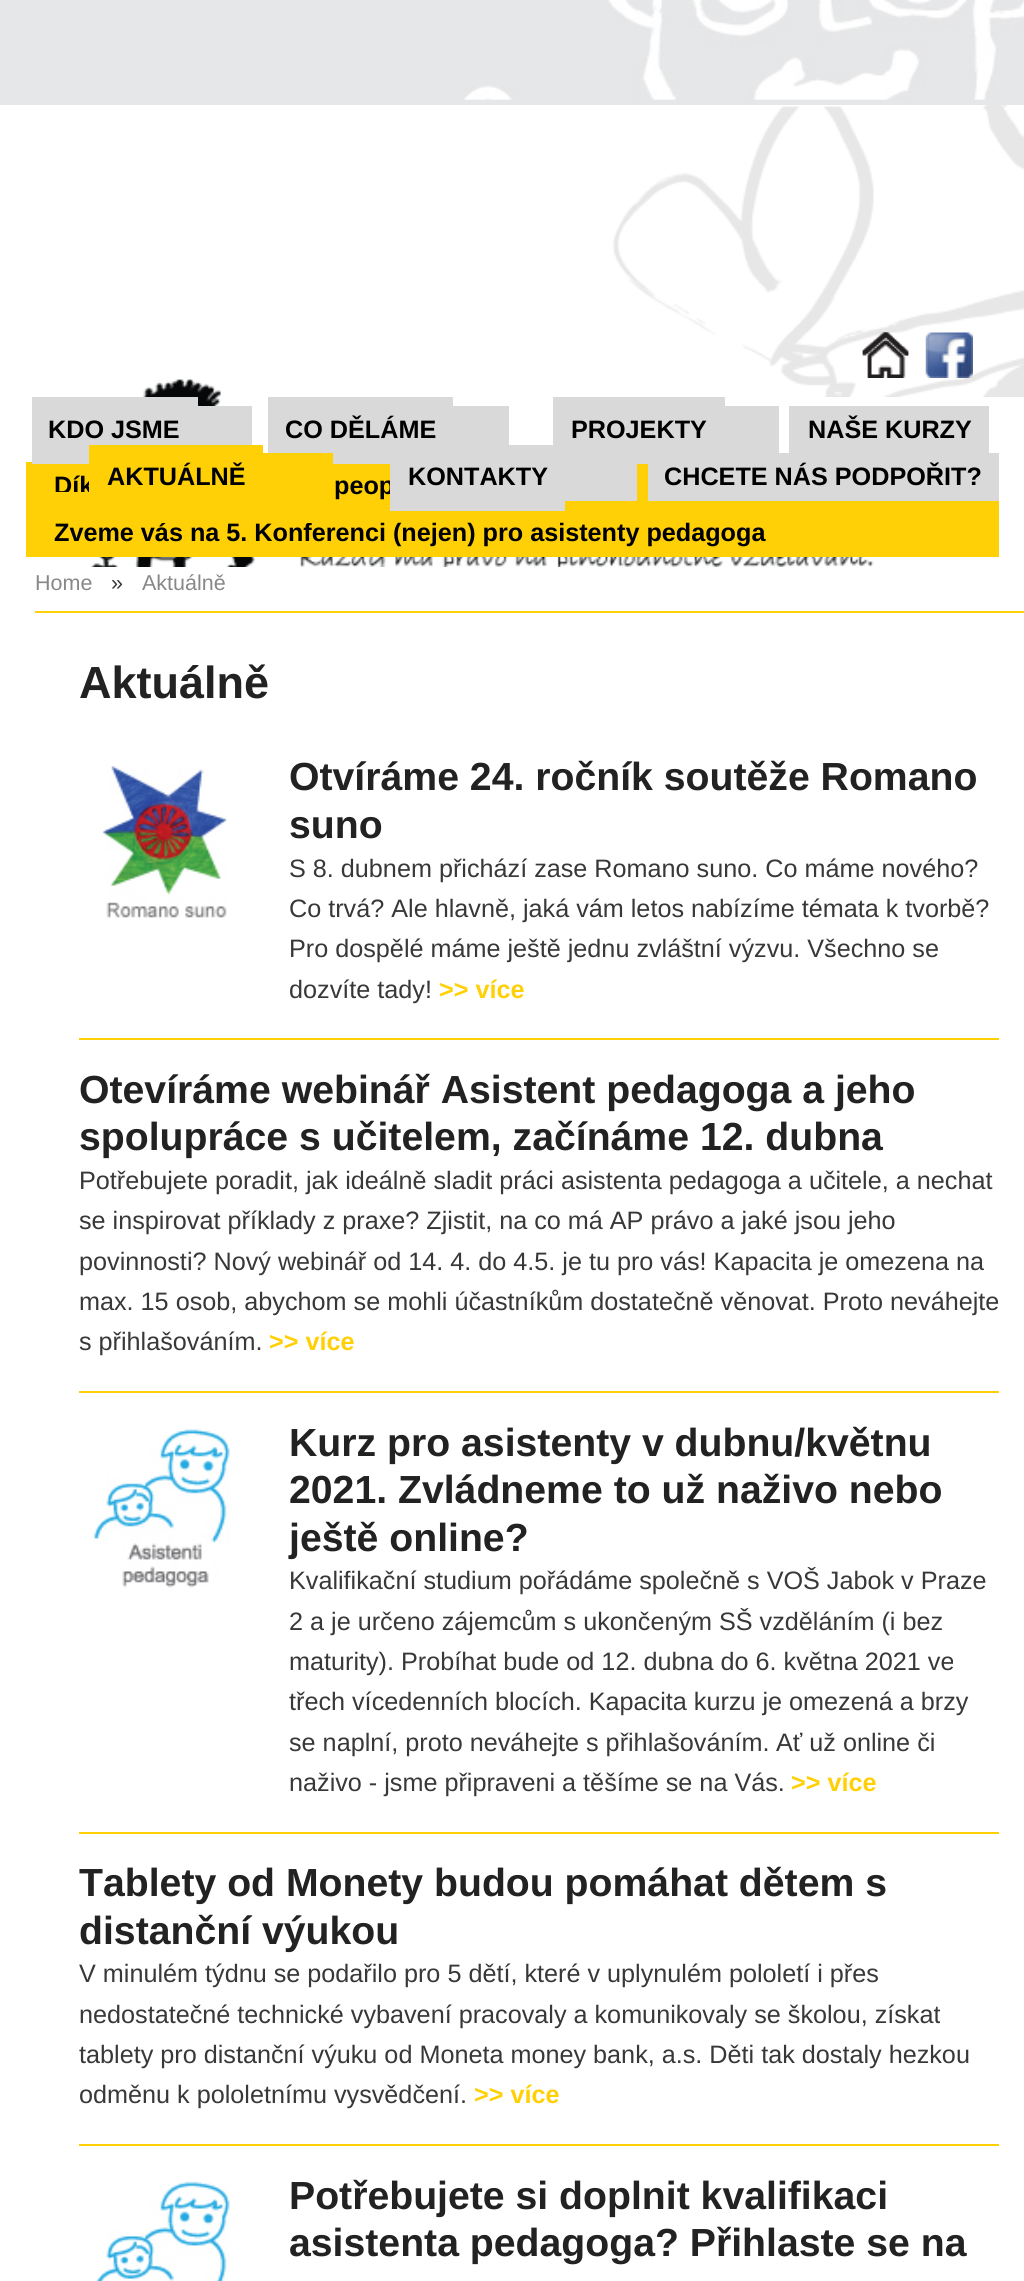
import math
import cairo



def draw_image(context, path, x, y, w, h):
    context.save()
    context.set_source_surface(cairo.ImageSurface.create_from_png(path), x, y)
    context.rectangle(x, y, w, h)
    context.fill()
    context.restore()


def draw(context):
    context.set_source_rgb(230 / 255, 231 / 255, 233 / 255)
    context.paint()
    draw_image(context, "images/1.png", 464, 0, 560, 100)
    draw_image(context, "images/2.png", 0, 105, 1024, 292)
    draw_image(context, "images/3.png", 862, 332, 47, 46)
    draw_image(context, "images/4.png", 862, 332, 47, 46)
    draw_image(context, "images/5.png", 925, 332, 48, 46)
    context.set_source_rgb(1, 1, 1)
    context.rectangle(0, 397, 1024, 1884)
    context.fill()
    draw_image(context, "images/6.png", 90, 379, 784, 188)
    context.set_source_rgb(1, 208 / 255, 6 / 255)
    context.rectangle(26, 462, 973, 95)
    context.fill()
    context.set_source_rgb(217 / 255, 217 / 255, 217 / 255)
    context.rectangle(32, 397, 166, 67)
    context.fill()
    context.rectangle(198, 406, 54, 39)
    context.fill()
    context.rectangle(268, 397, 185, 67)
    context.fill()
    context.rectangle(453, 406, 56, 39)
    context.fill()
    context.rectangle(553, 397, 172, 67)
    context.fill()
    context.rectangle(725, 406, 54, 47)
    context.fill()
    context.rectangle(789, 406, 200, 47)
    context.fill()
    context.set_source_rgb(1, 208 / 255, 6 / 255)
    context.rectangle(263, 453, 70, 11)
    context.fill()
    context.set_source_rgb(217 / 255, 217 / 255, 217 / 255)
    context.rectangle(565, 464, 72, 37)
    context.fill()
    context.rectangle(648, 453, 351, 48)
    context.fill()
    context.set_source_rgb(1, 208 / 255, 6 / 255)
    context.rectangle(35, 611, 989, 2)
    context.fill()
    context.rectangle(79, 1038, 920, 2)
    context.fill()
    draw_image(context, "images/7.png", 102, 766, 125, 152)
    context.rectangle(79, 1391, 920, 2)
    context.fill()
    context.rectangle(79, 1832, 920, 2)
    context.fill()
    draw_image(context, "images/8.png", 94, 1429, 136, 159)
    context.rectangle(79, 2144, 920, 2)
    context.fill()
    draw_image(context, "images/9.png", 96, 2181, 134, 100)
    context.select_font_face("Liberation Sans", cairo.FontSlant.NORMAL, cairo.FontWeight.BOLD)
    context.set_font_size(25.2)
    context.set_source_rgb(0, 0, 0)
    context.move_to(48, 438)
    context.show_text("KDO JSME")
    context.move_to(285, 438)
    context.show_text("CO DĚLÁME")
    context.move_to(571, 438)
    context.show_text("PROJEKTY")
    context.move_to(808, 438)
    context.show_text("NAŠE KURZY")
    context.move_to(664, 485)
    context.show_text("CHCETE NÁS PODPOŘIT?")
    context.move_to(54, 494)
    context.show_text("Dík")
    context.set_source_rgb(1, 208 / 255, 6 / 255)
    context.rectangle(89, 445, 174, 47)
    context.fill()
    context.set_source_rgb(0, 0, 0)
    context.move_to(107, 485)
    context.show_text("AKTUÁLNĚ")
    context.move_to(334, 494)
    context.show_text("peop")
    context.set_source_rgb(217 / 255, 217 / 255, 217 / 255)
    context.rectangle(390, 445, 175, 66)
    context.fill()
    context.set_source_rgb(0, 0, 0)
    context.move_to(408, 485)
    context.show_text("KONTAKTY")
    context.move_to(54, 541)
    context.show_text("Zveme vás na 5. Konferenci (nejen) pro asistenty pedagoga")
    context.set_source_rgb(1, 208 / 255, 6 / 255)
    context.rectangle(55, 492, 257, 31)
    context.fill()
    context.select_font_face("Liberation Sans")
    context.set_font_size(21.5)
    context.set_source_rgb(136 / 255, 136 / 255, 136 / 255)
    context.move_to(35, 590)
    context.show_text("Home")
    context.set_source_rgb(56 / 255, 56 / 255, 56 / 255)
    context.move_to(111, 590)
    context.show_text("»")
    context.set_source_rgb(136 / 255, 136 / 255, 136 / 255)
    context.move_to(142, 590)
    context.show_text("Aktuálně")
    context.select_font_face("Liberation Sans", cairo.FontSlant.NORMAL, cairo.FontWeight.BOLD)
    context.set_font_size(45)
    context.set_source_rgb(34 / 255, 34 / 255, 34 / 255)
    context.move_to(79, 698)
    context.show_text("Aktuálně")
    context.set_font_size(39.2)
    context.move_to(289, 790)
    context.show_text("Otvíráme 24. ročník soutěže Romano")
    context.move_to(289, 838)
    context.show_text("suno")
    context.select_font_face("Liberation Sans")
    context.set_font_size(25.2)
    context.set_source_rgb(56 / 255, 56 / 255, 56 / 255)
    context.move_to(289, 877)
    context.show_text("S 8. dubnem přichází zase Romano suno. Co máme nového?")
    context.move_to(289, 917)
    context.show_text("Co trvá? Ale hlavně, jaká vám letos nabízíme témata k tvorbě?")
    context.move_to(289, 957)
    context.show_text("Pro dospělé máme ještě jednu zvláštní výzvu. Všechno se")
    context.move_to(289, 998)
    context.show_text("dozvíte tady!")
    context.select_font_face("Liberation Sans", cairo.FontSlant.NORMAL, cairo.FontWeight.BOLD)
    context.set_source_rgb(1, 208 / 255, 6 / 255)
    context.move_to(439, 998)
    context.show_text(">> více")
    context.set_font_size(39.2)
    context.set_source_rgb(34 / 255, 34 / 255, 34 / 255)
    context.move_to(79, 1103)
    context.show_text("Otevíráme webinář Asistent pedagoga a jeho")
    context.move_to(79, 1150)
    context.show_text("spolupráce s učitelem, začínáme 12. dubna")
    context.select_font_face("Liberation Sans")
    context.set_font_size(25.2)
    context.set_source_rgb(56 / 255, 56 / 255, 56 / 255)
    context.move_to(79, 1189)
    context.show_text("Potřebujete poradit, jak ideálně sladit práci asistenta pedagoga a učitele, a nechat")
    context.move_to(79, 1229)
    context.show_text("se inspirovat příklady z praxe? Zjistit, na co má AP právo a jaké jsou jeho")
    context.move_to(79, 1270)
    context.show_text("povinnosti? Nový webinář od 14. 4. do 4.5. je tu pro vás! Kapacita je omezena na")
    context.move_to(79, 1310)
    context.show_text("max. 15 osob, abychom se mohli účastníkům dostatečně věnovat. Proto neváhejte")
    context.move_to(79, 1350)
    context.show_text("s přihlašováním.")
    context.select_font_face("Liberation Sans", cairo.FontSlant.NORMAL, cairo.FontWeight.BOLD)
    context.set_source_rgb(1, 208 / 255, 6 / 255)
    context.move_to(269, 1350)
    context.show_text(">> více")
    context.set_font_size(39.2)
    context.set_source_rgb(34 / 255, 34 / 255, 34 / 255)
    context.move_to(289, 1456)
    context.show_text("Kurz pro asistenty v dubnu/květnu")
    context.move_to(289, 1503)
    context.show_text("2021. Zvládneme to už naživo nebo")
    context.move_to(289, 1551)
    context.show_text("ještě online?")
    context.select_font_face("Liberation Sans")
    context.set_font_size(25.2)
    context.set_source_rgb(56 / 255, 56 / 255, 56 / 255)
    context.move_to(289, 1589)
    context.show_text("Kvalifikační studium pořádáme společně s VOŠ Jabok v Praze")
    context.move_to(289, 1630)
    context.show_text("2 a je určeno zájemcům s ukončeným SŠ vzděláním (i bez")
    context.move_to(289, 1670)
    context.show_text("maturity). Probíhat bude od 12. dubna do 6. května 2021 ve")
    context.move_to(289, 1710)
    context.show_text("třech vícedenních blocích. Kapacita kurzu je omezená a brzy")
    context.move_to(289, 1751)
    context.show_text("se naplní, proto neváhejte s přihlašováním.")
    context.move_to(776, 1751)
    context.show_text("Ať už online či")
    context.move_to(289, 1791)
    context.show_text("naživo - jsme připraveni a těšíme se na Vás.")
    context.select_font_face("Liberation Sans", cairo.FontSlant.NORMAL, cairo.FontWeight.BOLD)
    context.set_source_rgb(1, 208 / 255, 6 / 255)
    context.move_to(791, 1791)
    context.show_text(">> více")
    context.set_font_size(39.2)
    context.set_source_rgb(34 / 255, 34 / 255, 34 / 255)
    context.move_to(79, 1896)
    context.show_text("Tablety od Monety budou pomáhat dětem s")
    context.move_to(79, 1944)
    context.show_text("distanční výukou")
    context.select_font_face("Liberation Sans")
    context.set_font_size(25.2)
    context.set_source_rgb(56 / 255, 56 / 255, 56 / 255)
    context.move_to(79, 1982)
    context.show_text("V minulém týdnu se podařilo pro 5 dětí, které v uplynulém pololetí i přes")
    context.move_to(79, 2023)
    context.show_text("nedostatečné technické vybavení pracovaly a komunikovaly se školou, získat")
    context.move_to(79, 2063)
    context.show_text("tablety pro distanční výuku od Moneta money bank, a.s. Děti tak dostaly hezkou")
    context.move_to(79, 2103)
    context.show_text("odměnu k pololetnímu vysvědčení.")
    context.select_font_face("Liberation Sans", cairo.FontSlant.NORMAL, cairo.FontWeight.BOLD)
    context.set_source_rgb(1, 208 / 255, 6 / 255)
    context.move_to(474, 2103)
    context.show_text(">> více")
    context.set_font_size(39.2)
    context.set_source_rgb(34 / 255, 34 / 255, 34 / 255)
    context.move_to(289, 2209)
    context.show_text("Potřebujete si doplnit kvalifikaci")
    context.move_to(289, 2256)
    context.show_text("asistenta pedagoga? Přihlaste se na")


surface = cairo.ImageSurface(cairo.Format.RGB24, 1024, 2281)
context = cairo.Context(surface)
options = cairo.FontOptions()
options.set_hint_metrics(cairo.HintMetrics.OFF)
options.set_hint_style(cairo.HintStyle.NONE)
context.set_font_options(options)
context.set_miter_limit(4)
draw(context)
surface.write_to_png("out.png")
